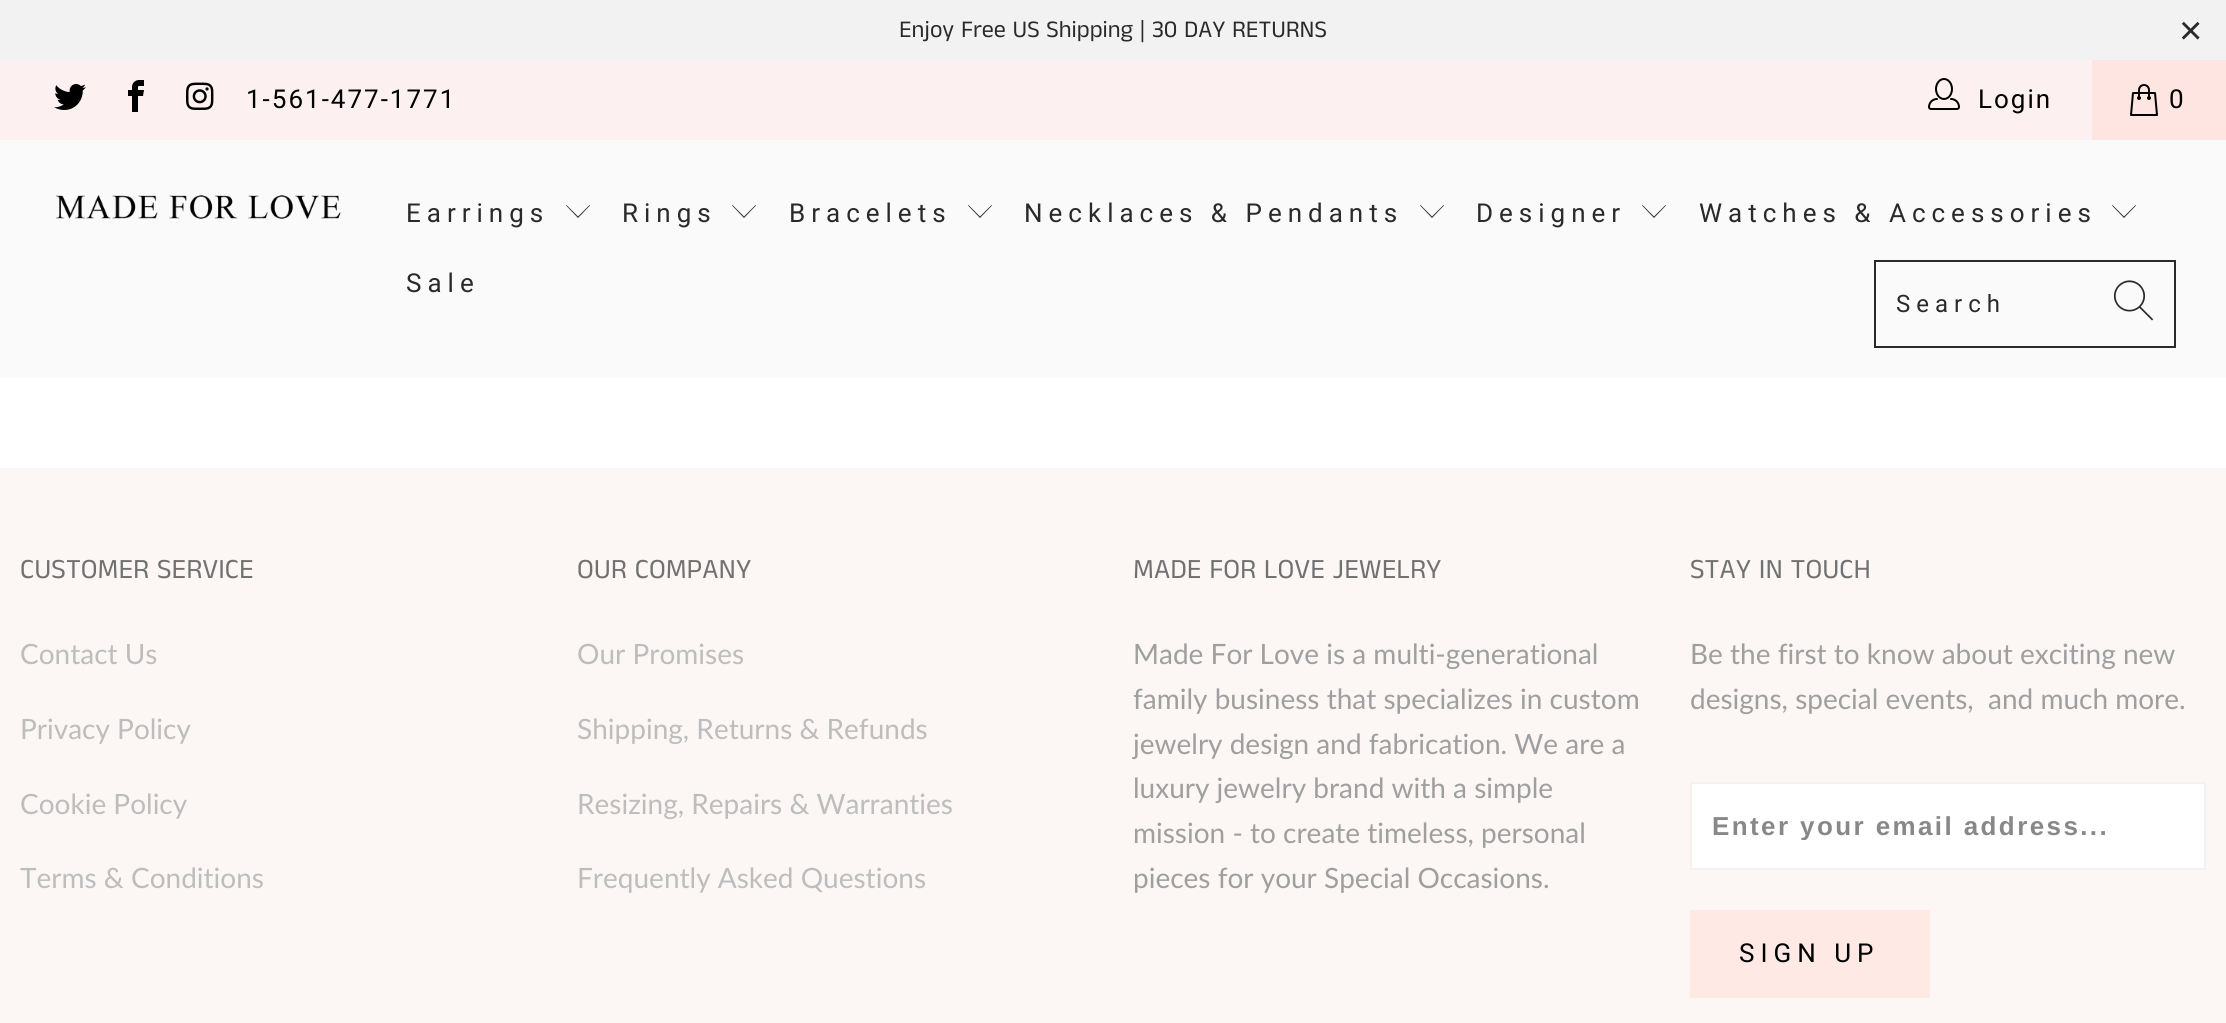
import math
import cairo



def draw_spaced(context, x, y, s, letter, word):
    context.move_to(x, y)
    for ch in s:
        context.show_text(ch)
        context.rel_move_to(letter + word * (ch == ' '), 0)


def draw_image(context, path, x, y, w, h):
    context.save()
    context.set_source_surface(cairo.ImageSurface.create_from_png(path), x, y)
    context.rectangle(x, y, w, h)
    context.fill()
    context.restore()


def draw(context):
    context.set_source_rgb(1, 1, 1)
    context.paint()
    context.set_source_rgb(242 / 255, 242 / 255, 242 / 255)
    context.rectangle(0, 0, 2226, 60)
    context.fill()
    context.set_source_rgb(252 / 255, 241 / 255, 240 / 255)
    context.rectangle(0, 60, 2092, 80)
    context.fill()
    draw_image(context, "images/1.png", 54, 84, 32, 26)
    draw_image(context, "images/2.png", 128, 80, 16, 32)
    draw_image(context, "images/3.png", 186, 82, 28, 28)
    draw_image(context, "images/4.png", 1928, 78, 32, 32)
    context.set_source_rgb(1, 229 / 255, 226 / 255)
    context.rectangle(2092, 60, 134, 80)
    context.fill()
    draw_image(context, "images/5.png", 2130, 84, 28, 32)
    context.set_source_rgb(250 / 255, 250 / 255, 250 / 255)
    context.rectangle(0, 140, 2226, 238)
    context.fill()
    draw_image(context, "images/6.png", 56, 195, 285, 24)
    context.set_source_rgb(43 / 255, 42 / 255, 42 / 255)
    context.new_path()
    context.move_to(578, 218)
    context.line_to(566, 205.5)
    context.line_to(566.5, 205)
    context.line_to(578, 216.5)
    context.line_to(589.5, 205)
    context.line_to(590, 205.5)
    context.close_path()
    context.fill()
    context.new_path()
    context.move_to(744, 218)
    context.line_to(732, 205.5)
    context.line_to(732.5, 205)
    context.line_to(744, 216.5)
    context.line_to(755.5, 205)
    context.line_to(756, 205.5)
    context.close_path()
    context.fill()
    context.new_path()
    context.move_to(980, 218)
    context.line_to(968, 205.5)
    context.line_to(968.5, 205)
    context.line_to(980, 216.5)
    context.line_to(991.5, 205)
    context.line_to(992, 205.5)
    context.close_path()
    context.fill()
    context.new_path()
    context.move_to(1432, 218)
    context.line_to(1420, 205.5)
    context.line_to(1420.5, 205)
    context.line_to(1432, 216.5)
    context.line_to(1443.5, 205)
    context.line_to(1444, 205.5)
    context.close_path()
    context.fill()
    context.new_path()
    context.move_to(1654, 218)
    context.line_to(1642, 205.5)
    context.line_to(1642.5, 205)
    context.line_to(1654, 216.5)
    context.line_to(1665.5, 205)
    context.line_to(1666, 205.5)
    context.close_path()
    context.fill()
    context.new_path()
    context.move_to(2124, 218)
    context.line_to(2112, 205.5)
    context.line_to(2112.5, 205)
    context.line_to(2124, 216.5)
    context.line_to(2135.5, 205)
    context.line_to(2136, 205.5)
    context.close_path()
    context.fill()
    context.rectangle(1875, 261, 300, 86)
    context.stroke()
    draw_image(context, "images/7.png", 2113, 280, 41, 41)
    context.set_source_rgb(252 / 255, 246 / 255, 245 / 255)
    context.rectangle(0, 468, 2226, 555)
    context.fill()
    context.set_source_rgb(1, 1, 1)
    context.rectangle(1691, 783, 514, 86)
    context.fill_preserve()
    context.set_source_rgb(242 / 255, 242 / 255, 242 / 255)
    context.stroke()
    context.set_source_rgb(1, 233 / 255, 229 / 255)
    context.rectangle(1690, 910, 240, 88)
    context.fill()
    context.select_font_face("Anek Tamil")
    context.set_font_size(24)
    context.set_source_rgb(43 / 255, 42 / 255, 42 / 255)
    context.move_to(899, 37)
    context.show_text("Enjoy Free US Shipping | 30 DAY RETURNS")
    context.select_font_face("Liberation Sans")
    context.set_font_size(40)
    context.move_to(2179, 44)
    context.show_text("×")
    context.select_font_face("Roboto")
    context.set_font_size(26)
    context.set_source_rgb(0, 0, 0)
    draw_spaced(context, 246, 108, "1-561-477-1771", 2, 0)
    draw_spaced(context, 1978, 108, "Login", 2, 0)
    draw_spaced(context, 2169, 108, "0", 2, 0)
    context.set_source_rgb(43 / 255, 42 / 255, 42 / 255)
    draw_spaced(context, 406, 222, "Earrings", 6, 0)
    draw_spaced(context, 622, 222, "Rings", 6, 0)
    draw_spaced(context, 789, 222, "Bracelets", 6, 0)
    draw_spaced(context, 1024, 222, "Necklaces & Pendants", 6, 0)
    draw_spaced(context, 1476, 222, "Designer", 6, 0)
    draw_spaced(context, 1699, 222, "Watches & Accessories", 6, 0)
    draw_spaced(context, 406, 292, "Sale", 6, 0)
    context.set_font_size(24)
    draw_spaced(context, 1896, 312, "Search", 6, 0)
    context.select_font_face("Anek Tamil")
    context.set_font_size(28)
    context.set_source_rgb(113 / 255, 113 / 255, 113 / 255)
    context.move_to(20, 578)
    context.show_text("CUSTOMER SERVICE")
    context.select_font_face("Lato")
    context.set_source_rgb(189 / 255, 189 / 255, 189 / 255)
    context.move_to(20, 664)
    context.show_text("Contact Us")
    context.move_to(20, 739)
    context.show_text("Privacy Policy")
    context.move_to(20, 814)
    context.show_text("Cookie Policy")
    context.move_to(20, 888)
    context.show_text("Terms & Conditions")
    context.select_font_face("Anek Tamil")
    context.set_source_rgb(113 / 255, 113 / 255, 113 / 255)
    context.move_to(577, 578)
    context.show_text("OUR COMPANY")
    context.select_font_face("Lato")
    context.set_source_rgb(189 / 255, 189 / 255, 189 / 255)
    context.move_to(577, 664)
    context.show_text("Our Promises")
    context.move_to(577, 739)
    context.show_text("Shipping, Returns & Refunds")
    context.move_to(577, 814)
    context.show_text("Resizing, Repairs & Warranties")
    context.move_to(577, 888)
    context.show_text("Frequently Asked Questions")
    context.select_font_face("Anek Tamil")
    context.set_source_rgb(113 / 255, 113 / 255, 113 / 255)
    context.move_to(1133, 578)
    context.show_text("MADE FOR LOVE JEWELRY")
    context.select_font_face("Lato")
    context.set_source_rgb(159 / 255, 159 / 255, 159 / 255)
    context.move_to(1133, 664)
    context.show_text("Made For Love is a multi-generational")
    context.move_to(1133, 709)
    context.show_text("family business that specializes in custom")
    context.move_to(1133, 754)
    context.show_text("jewelry design and fabrication. We are a")
    context.move_to(1133, 798)
    context.show_text("luxury jewelry brand with a simple")
    context.move_to(1133, 843)
    context.show_text("mission - to create timeless, personal")
    context.move_to(1133, 888)
    context.show_text("pieces for your Special Occasions.")
    context.select_font_face("Anek Tamil")
    context.set_source_rgb(113 / 255, 113 / 255, 113 / 255)
    context.move_to(1690, 578)
    context.show_text("STAY IN TOUCH")
    context.select_font_face("Lato")
    context.set_source_rgb(159 / 255, 159 / 255, 159 / 255)
    context.move_to(1690, 664)
    context.show_text("Be the first to know about exciting new")
    context.move_to(1690, 709)
    context.show_text("designs, special events,  and much more.")
    context.save()
    context.rectangle(1712, 810, 472, 30)
    context.clip()
    context.select_font_face("Liberation Sans", cairo.FontSlant.NORMAL, cairo.FontWeight.BOLD)
    context.set_font_size(26)
    context.set_source_rgb(136 / 255, 136 / 255, 136 / 255)
    draw_spaced(context, 1712, 835, "Enter your email address...", 2.4, 0)
    context.restore()
    context.select_font_face("Roboto")
    context.set_font_size(26)
    context.set_source_rgb(0, 0, 0)
    draw_spaced(context, 1739, 962, "SIGN UP", 6, 0)


surface = cairo.ImageSurface(cairo.Format.RGB24, 2226, 1023)
context = cairo.Context(surface)
options = cairo.FontOptions()
options.set_hint_metrics(cairo.HintMetrics.OFF)
options.set_hint_style(cairo.HintStyle.NONE)
context.set_font_options(options)
context.set_miter_limit(4)
draw(context)
surface.write_to_png("out.png")
